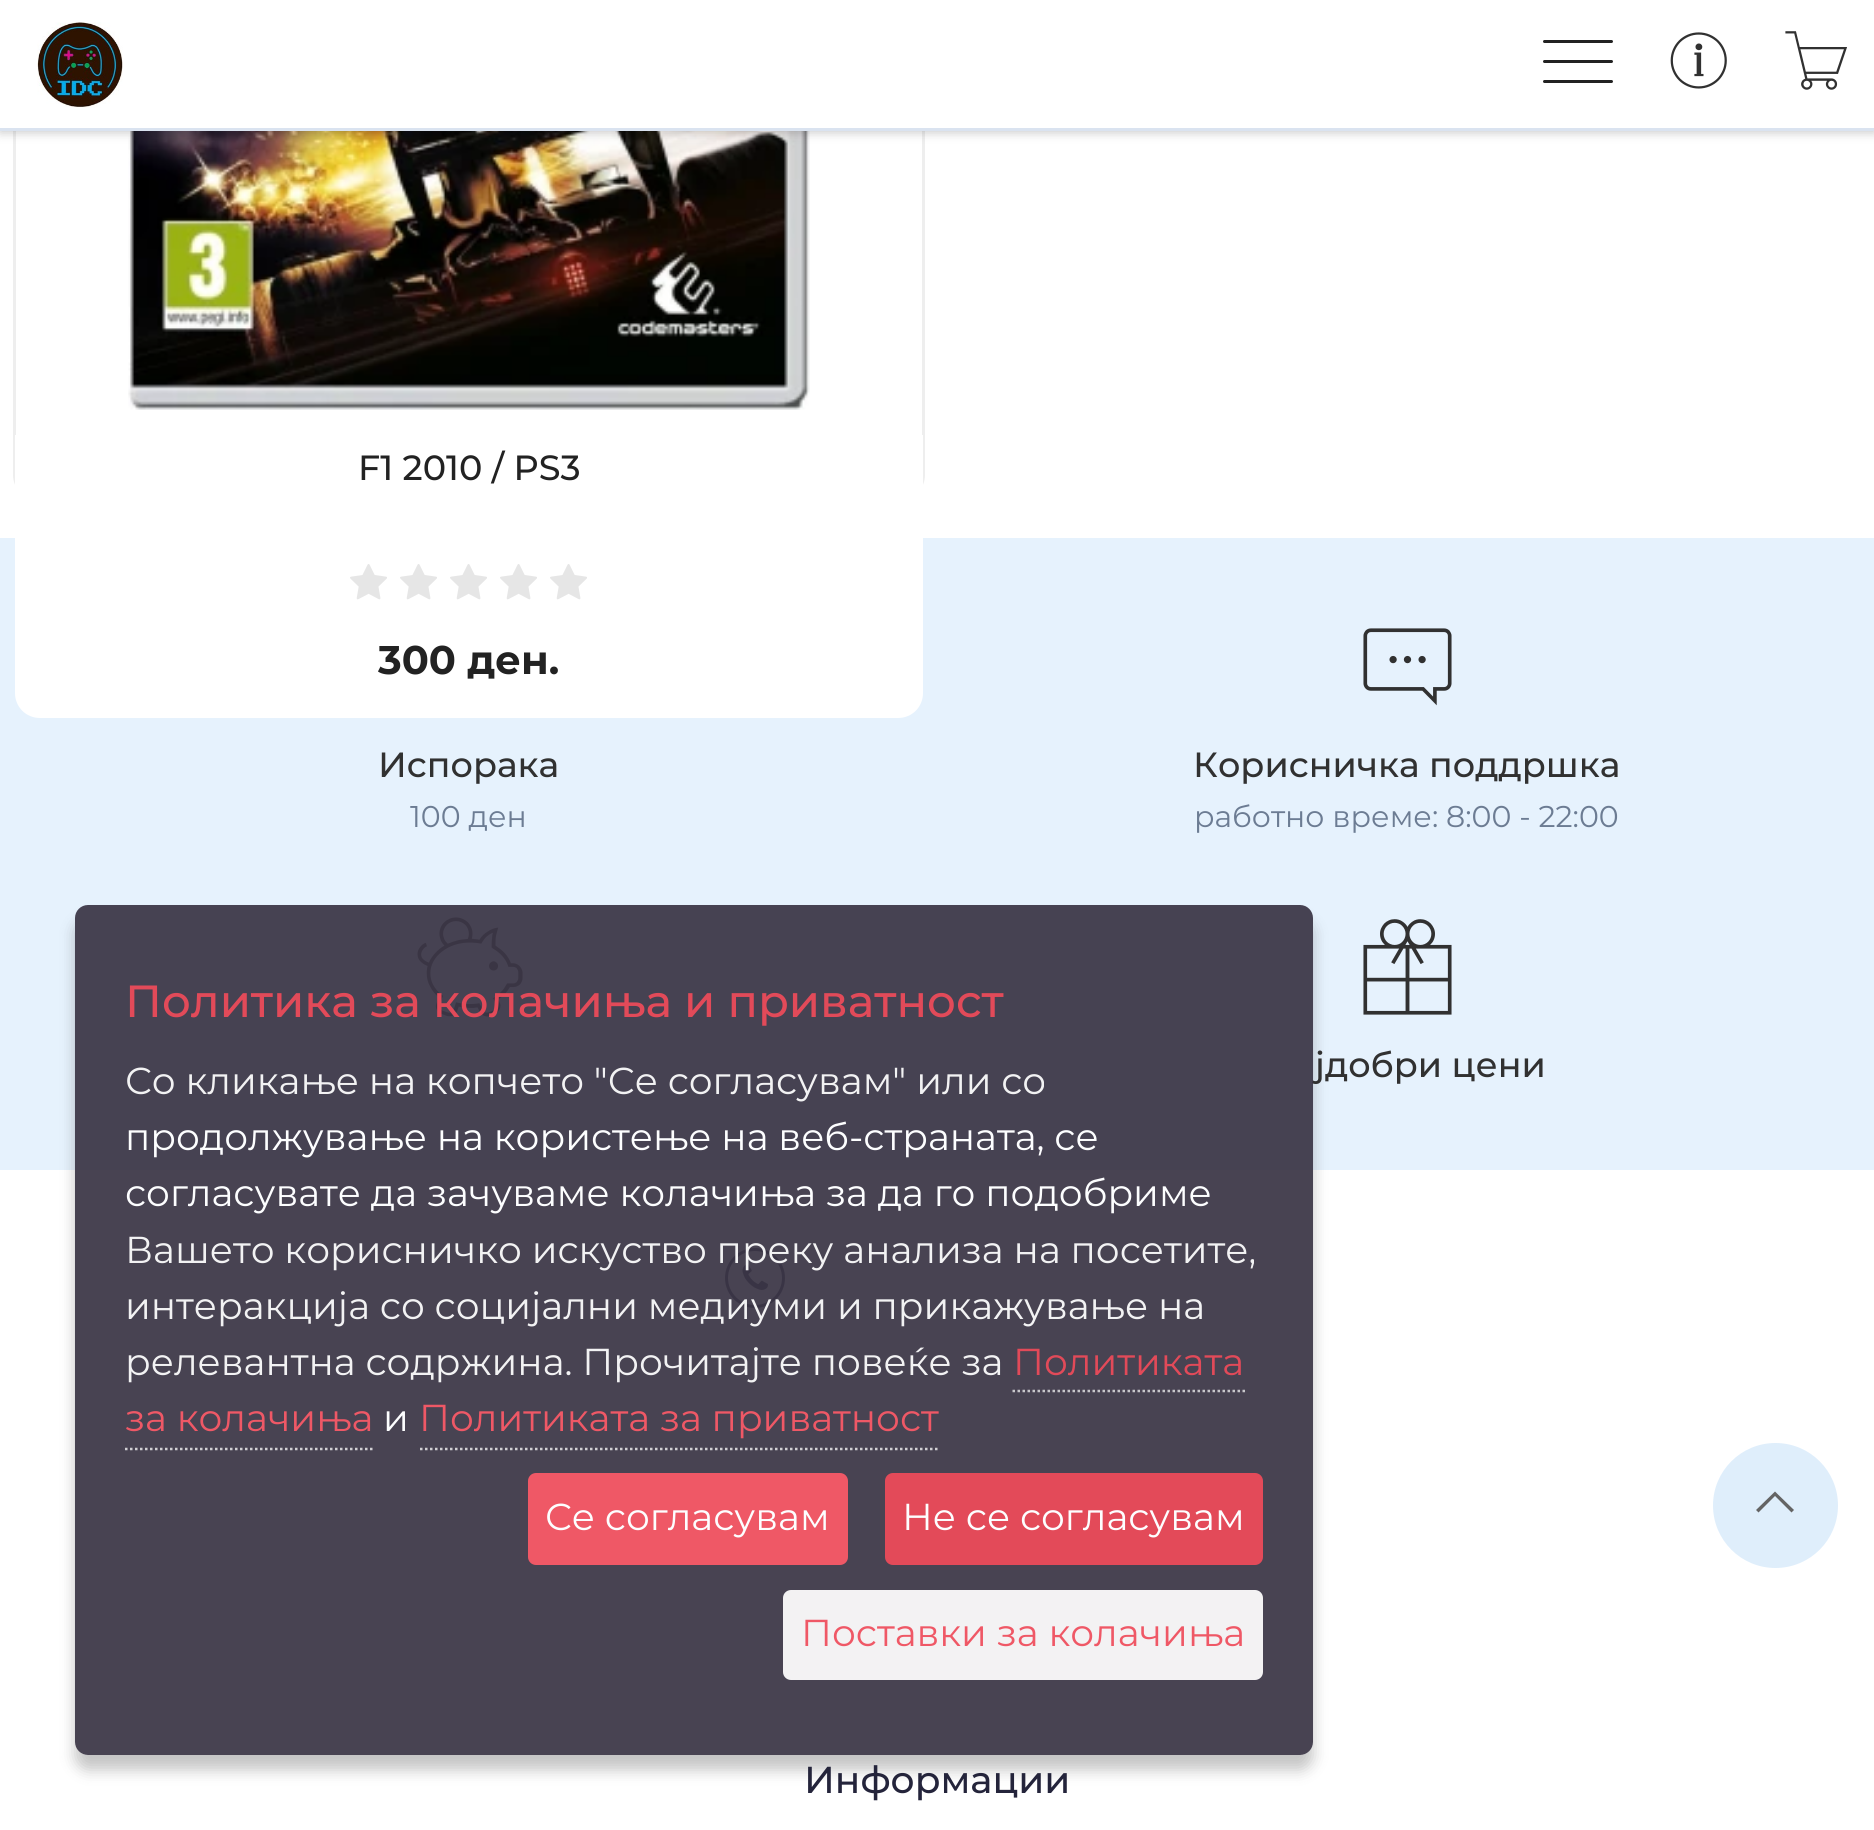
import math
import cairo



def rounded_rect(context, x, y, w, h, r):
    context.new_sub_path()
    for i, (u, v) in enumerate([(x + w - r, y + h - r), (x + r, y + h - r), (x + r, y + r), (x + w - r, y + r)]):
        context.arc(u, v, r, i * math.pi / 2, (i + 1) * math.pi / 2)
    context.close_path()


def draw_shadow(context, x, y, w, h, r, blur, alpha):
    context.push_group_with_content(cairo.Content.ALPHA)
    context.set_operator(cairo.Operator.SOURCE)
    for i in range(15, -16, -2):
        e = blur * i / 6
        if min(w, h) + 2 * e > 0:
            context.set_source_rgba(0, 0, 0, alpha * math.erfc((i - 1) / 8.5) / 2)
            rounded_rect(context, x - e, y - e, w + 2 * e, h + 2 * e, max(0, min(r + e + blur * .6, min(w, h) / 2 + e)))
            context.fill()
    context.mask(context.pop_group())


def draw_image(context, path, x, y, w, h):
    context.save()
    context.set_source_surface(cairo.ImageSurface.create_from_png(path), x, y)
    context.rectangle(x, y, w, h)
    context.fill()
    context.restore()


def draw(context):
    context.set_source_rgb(1, 1, 1)
    context.paint()
    rounded_rect(context, 14.5, -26.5, 909, 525, 23.5)
    context.set_source_rgb(238 / 255, 238 / 255, 238 / 255)
    context.set_line_width(3)
    context.stroke()
    draw_image(context, "images/4.png", 128, 131, 682, 279)
    context.set_source_rgb(0, 0, 0)
    draw_shadow(context, 0, 3, 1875, 130, 0, 5, 0.2)
    context.set_source_rgb(1, 1, 1)
    context.rectangle(0, 0, 1874, 128)
    context.fill()
    context.set_source_rgb(218 / 255, 227 / 255, 240 / 255)
    context.rectangle(0, 128, 1874, 3)
    context.fill()
    draw_image(context, "images/1.png", 37, 22, 86, 86)
    context.set_source_rgb(34 / 255, 34 / 255, 34 / 255)
    rounded_rect(context, 1543, 40, 70, 3, 1.5)
    context.fill()
    rounded_rect(context, 1543, 60, 70, 3, 1.5)
    context.fill()
    rounded_rect(context, 1543, 80, 70, 3, 1.5)
    context.fill()
    draw_image(context, "images/2.png", 1670, 32, 57, 57)
    draw_image(context, "images/3.png", 1785, 31, 62, 59)
    context.set_source_rgb(230 / 255, 242 / 255, 253 / 255)
    context.rectangle(0, 538, 1874, 632)
    context.fill()
    context.set_source_rgb(1, 1, 1)
    context.new_path()
    context.move_to(15, 435)
    context.line_to(923, 435)
    context.line_to(923, 693)
    context.curve_to(923, 707, 912, 718, 898, 718)
    context.line_to(40, 718)
    context.curve_to(26, 718, 15, 707, 15, 693)
    context.close_path()
    context.fill()
    draw_image(context, "images/5.png", 350, 564, 37, 36)
    draw_image(context, "images/5.png", 400, 564, 37, 36)
    draw_image(context, "images/5.png", 450, 564, 37, 36)
    draw_image(context, "images/5.png", 500, 564, 37, 36)
    draw_image(context, "images/5.png", 550, 564, 37, 36)
    draw_image(context, "images/6.png", 1363, 628, 89, 78)
    draw_image(context, "images/7.png", 417, 917, 106, 100)
    draw_image(context, "images/8.png", 1363, 919, 89, 96)
    context.arc(755, 1278, 28.5, 0, 2 * math.pi)
    context.set_source_rgb(36 / 255, 36 / 255, 59 / 255)
    context.stroke()
    draw_image(context, "images/9.png", 742, 1264, 26, 26)
    context.save()
    context.set_fill_rule(cairo.FillRule.EVEN_ODD)
    context.new_path()
    context.move_to(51, 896)
    context.line_to(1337, 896)
    context.line_to(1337, 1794)
    context.line_to(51, 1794)
    context.close_path()
    context.move_to(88, 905)
    context.line_to(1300, 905)
    context.curve_to(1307, 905, 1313, 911, 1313, 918)
    context.line_to(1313, 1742)
    context.curve_to(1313, 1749, 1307, 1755, 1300, 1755)
    context.line_to(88, 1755)
    context.curve_to(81, 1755, 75, 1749, 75, 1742)
    context.line_to(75, 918)
    context.curve_to(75, 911, 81, 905, 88, 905)
    context.close_path()
    context.clip()
    context.set_source_rgb(0, 0, 0)
    draw_shadow(context, 75, 920, 1238, 850, 13, 7.5, 0.23)
    context.restore()
    context.set_source_rgb(223 / 255, 238 / 255, 251 / 255)
    context.arc(1775.5, 1505.5, 62.5, 0, 2 * math.pi)
    context.fill()
    context.set_source_rgb(100 / 255, 100 / 255, 100 / 255)
    context.new_path()
    context.move_to(1777.5, 1494)
    context.line_to(1775, 1491.5)
    context.line_to(1756, 1510)
    context.line_to(1758.5, 1512.5)
    context.line_to(1775, 1496)
    context.line_to(1791.5, 1512.5)
    context.line_to(1794, 1510)
    context.close_path()
    context.fill()
    context.select_font_face("Montserrat Medium")
    context.set_font_size(35)
    context.set_source_rgb(34 / 255, 34 / 255, 34 / 255)
    context.move_to(358, 480)
    context.show_text("F1 2010 / PS3")
    context.select_font_face("Montserrat", cairo.FontSlant.NORMAL, cairo.FontWeight.BOLD)
    context.set_font_size(40)
    context.move_to(378, 674)
    context.show_text("300 ден.")
    context.select_font_face("Montserrat Medium")
    context.set_font_size(35)
    context.set_source_rgb(49 / 255, 49 / 255, 49 / 255)
    context.move_to(378, 777)
    context.show_text("Испорака")
    context.select_font_face("Montserrat")
    context.set_font_size(30)
    context.set_source_rgb(108 / 255, 124 / 255, 147 / 255)
    context.move_to(410, 827)
    context.show_text("100 ден")
    context.select_font_face("Montserrat Medium")
    context.set_font_size(35)
    context.set_source_rgb(49 / 255, 49 / 255, 49 / 255)
    context.move_to(1193, 777)
    context.show_text("Корисничка поддршка")
    context.select_font_face("Montserrat")
    context.set_font_size(30)
    context.set_source_rgb(108 / 255, 124 / 255, 147 / 255)
    context.move_to(1194, 827)
    context.show_text("работно време: 8:00 - 22:00")
    context.select_font_face("Montserrat Medium")
    context.set_font_size(35)
    context.set_source_rgb(49 / 255, 49 / 255, 49 / 255)
    context.move_to(1315, 1077)
    context.show_text("јдобри цени")
    context.set_source_rgba(59 / 255, 54 / 255, 70 / 255, 0.93)
    rounded_rect(context, 75, 905, 1238, 850, 13)
    context.fill()
    context.set_font_size(45)
    context.set_source_rgb(226 / 255, 74 / 255, 89 / 255)
    context.move_to(125, 1017)
    context.show_text("Политика за колачиња и приватност")
    context.select_font_face("Montserrat")
    context.set_font_size(37.5)
    context.set_source_rgb(242 / 255, 242 / 255, 243 / 255)
    context.move_to(125, 1094)
    context.show_text("Со кликање на копчето \"Се согласувам\" или со")
    context.set_source_rgb(253 / 255, 254 / 255, 1)
    context.move_to(125, 1150)
    context.show_text("продолжување на користење на веб-страната, се")
    context.move_to(125, 1206)
    context.show_text("согласувате да зачуваме колачиња за да го подобриме")
    context.set_source_rgb(242 / 255, 242 / 255, 243 / 255)
    context.move_to(125, 1263)
    context.show_text("Вашето корисничко искуство преку анализа на посетите,")
    context.move_to(125, 1319)
    context.show_text("интеракција со социјални медиуми и прикажување на")
    context.move_to(125, 1375)
    context.show_text("релевантна содржина. Прочитајте повеќе за")
    context.set_source_rgb(226 / 255, 74 / 255, 89 / 255)
    context.move_to(1013, 1375)
    context.show_text("Политиката")
    context.new_path()
    context.move_to(1012.5, 1391)
    context.line_to(1245, 1391)
    context.set_source_rgba(1, 1, 1, 0.7)
    context.set_line_width(2.5)
    context.set_dash([2.5, 2.5])
    context.stroke()
    context.set_source_rgb(239 / 255, 88 / 255, 102 / 255)
    context.move_to(125, 1431)
    context.show_text("за колачиња")
    context.new_path()
    context.move_to(125, 1449)
    context.line_to(372.5, 1449)
    context.set_source_rgb(209 / 255, 208 / 255, 212 / 255)
    context.stroke()
    context.set_source_rgb(253 / 255, 254 / 255, 1)
    context.move_to(383, 1431)
    context.show_text("и")
    context.set_source_rgb(239 / 255, 88 / 255, 102 / 255)
    context.move_to(419, 1431)
    context.show_text("Политиката за приватност")
    context.new_path()
    context.move_to(420, 1449)
    context.line_to(940, 1449)
    context.set_source_rgb(209 / 255, 208 / 255, 212 / 255)
    context.stroke()
    context.set_source_rgb(239 / 255, 88 / 255, 102 / 255)
    rounded_rect(context, 528, 1473, 320, 92, 8)
    context.fill()
    context.set_source_rgb(253 / 255, 254 / 255, 1)
    context.move_to(545, 1530)
    context.show_text("Се согласувам")
    context.set_source_rgba(238 / 255, 75 / 255, 90 / 255, 0.93)
    rounded_rect(context, 885, 1473, 378, 92, 8)
    context.fill()
    context.set_source_rgb(253 / 255, 254 / 255, 1)
    context.move_to(902, 1530)
    context.show_text("Не се согласувам")
    context.set_source_rgba(1, 1, 1, 0.93)
    rounded_rect(context, 783, 1590, 480, 90, 8)
    context.fill()
    context.set_source_rgb(239 / 255, 88 / 255, 102 / 255)
    context.move_to(801, 1646)
    context.show_text("Поставки за колачиња")
    context.select_font_face("Montserrat Medium")
    context.set_source_rgb(36 / 255, 36 / 255, 59 / 255)
    context.move_to(804, 1793)
    context.show_text("Информации")


surface = cairo.ImageSurface(cairo.Format.RGB24, 1874, 1830)
context = cairo.Context(surface)
options = cairo.FontOptions()
options.set_hint_metrics(cairo.HintMetrics.OFF)
options.set_hint_style(cairo.HintStyle.NONE)
context.set_font_options(options)
context.set_miter_limit(4)
draw(context)
surface.write_to_png("out.png")
